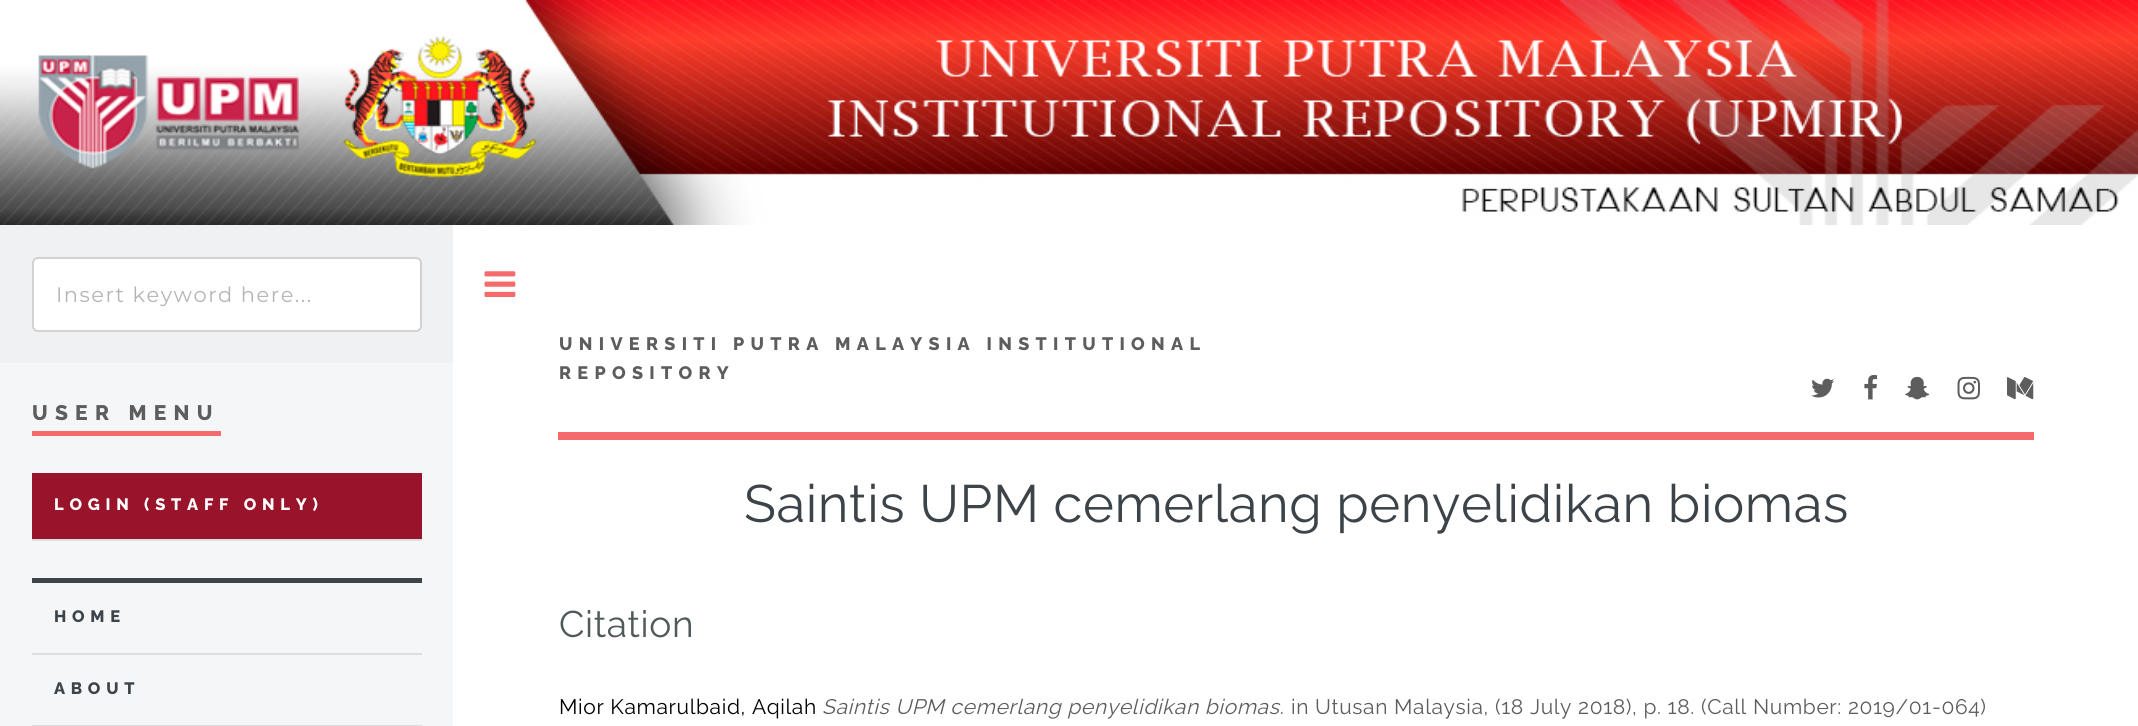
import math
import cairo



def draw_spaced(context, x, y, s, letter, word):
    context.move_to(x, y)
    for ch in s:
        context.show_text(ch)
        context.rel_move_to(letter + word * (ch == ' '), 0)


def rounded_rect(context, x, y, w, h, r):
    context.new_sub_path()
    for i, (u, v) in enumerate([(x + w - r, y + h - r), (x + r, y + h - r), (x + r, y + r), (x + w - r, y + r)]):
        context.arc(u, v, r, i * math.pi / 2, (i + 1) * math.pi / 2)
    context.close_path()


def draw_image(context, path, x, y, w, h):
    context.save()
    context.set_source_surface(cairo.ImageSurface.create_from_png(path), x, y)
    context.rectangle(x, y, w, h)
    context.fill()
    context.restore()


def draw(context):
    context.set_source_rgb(1, 1, 1)
    context.paint()
    draw_image(context, "images/1.png", 0, 0, 2138, 225)
    context.set_source_rgb(245 / 255, 246 / 255, 247 / 255)
    context.rectangle(0, 363, 453, 363)
    context.fill()
    context.set_source_rgb(239 / 255, 241 / 255, 242 / 255)
    context.rectangle(0, 225, 453, 138)
    context.fill()
    context.set_source_rgb(1, 1, 1)
    rounded_rect(context, 33, 258, 388, 73, 5)
    context.fill_preserve()
    context.set_source_rgb(210 / 255, 210 / 255, 210 / 255)
    context.stroke()
    context.set_source_rgb(245 / 255, 106 / 255, 106 / 255)
    context.rectangle(32, 431, 189, 5)
    context.fill()
    context.set_source_rgb(153 / 255, 20 / 255, 42 / 255)
    context.rectangle(32, 473, 390, 66)
    context.fill()
    context.set_source_rgb(219 / 255, 223 / 255, 225 / 255)
    context.rectangle(32, 539, 390, 2)
    context.fill()
    context.set_source_rgb(61 / 255, 68 / 255, 73 / 255)
    context.rectangle(32, 578, 390, 5)
    context.fill()
    context.set_source_rgb(219 / 255, 223 / 255, 225 / 255)
    context.rectangle(32, 653, 390, 2)
    context.fill()
    context.rectangle(32, 725, 390, 1)
    context.fill()
    draw_image(context, "images/2.png", 484, 271, 32, 26)
    context.set_source_rgb(245 / 255, 106 / 255, 106 / 255)
    context.rectangle(558, 432, 1476, 8)
    context.fill()
    draw_image(context, "images/3.png", 1811, 378, 23, 20)
    draw_image(context, "images/4.png", 1864, 375, 14, 25)
    draw_image(context, "images/5.png", 1905, 376, 25, 24)
    draw_image(context, "images/6.png", 1957, 376, 23, 24)
    draw_image(context, "images/7.png", 2007, 377, 27, 23)
    context.select_font_face("Montserrat")
    context.set_font_size(21)
    context.set_source_rgb(181 / 255, 181 / 255, 181 / 255)
    draw_spaced(context, 56, 302, "Insert keyword here...", 1.5, 0)
    context.select_font_face("Raleway ExtraBold")
    context.set_source_rgb(93 / 255, 93 / 255, 93 / 255)
    draw_spaced(context, 32, 420, "USER MENU", 7.25, 0)
    context.set_font_size(16.5)
    context.set_source_rgb(1, 1, 1)
    draw_spaced(context, 54, 510, "LOGIN (STAFF ONLY)", 5.75, 0)
    context.set_source_rgb(61 / 255, 68 / 255, 73 / 255)
    draw_spaced(context, 54, 622, "HOME", 5.75, 0)
    draw_spaced(context, 54, 694, "ABOUT", 5.75, 0)
    context.set_font_size(18)
    context.set_source_rgb(93 / 255, 93 / 255, 93 / 255)
    draw_spaced(context, 559, 350, "UNIVERSITI PUTRA MALAYSIA INSTITUTIONAL", 6.3, 0)
    draw_spaced(context, 559, 379, "REPOSITORY", 6.3, 0)
    context.select_font_face("Raleway")
    context.set_font_size(52.5)
    context.set_source_rgb(61 / 255, 68 / 255, 73 / 255)
    draw_spaced(context, 744, 522, "Saintis UPM cemerlang penyelidikan biomas", 0.63, 0)
    context.set_font_size(37)
    context.set_source_rgb(81 / 255, 90 / 255, 90 / 255)
    draw_spaced(context, 559, 637, "Citation", 0.63, 0)
    context.set_font_size(21)
    context.set_source_rgb(0, 0, 0)
    draw_spaced(context, 559, 714, "Mior Kamarulbaid, Aqilah", 0.63, 0)
    context.select_font_face("Raleway", cairo.FontSlant.ITALIC)
    context.set_source_rgb(93 / 255, 93 / 255, 93 / 255)
    draw_spaced(context, 822, 714, "Saintis UPM cemerlang penyelidikan biomas.", 0.63, 0)
    context.select_font_face("Raleway")
    draw_spaced(context, 1291, 714, "in Utusan Malaysia, (18 July 2018), p. 18. (Call Number: 2019/01-064)", 0.63, 0)


surface = cairo.ImageSurface(cairo.Format.RGB24, 2138, 726)
context = cairo.Context(surface)
options = cairo.FontOptions()
options.set_hint_metrics(cairo.HintMetrics.OFF)
options.set_hint_style(cairo.HintStyle.NONE)
context.set_font_options(options)
context.set_miter_limit(4)
draw(context)
surface.write_to_png("out.png")
